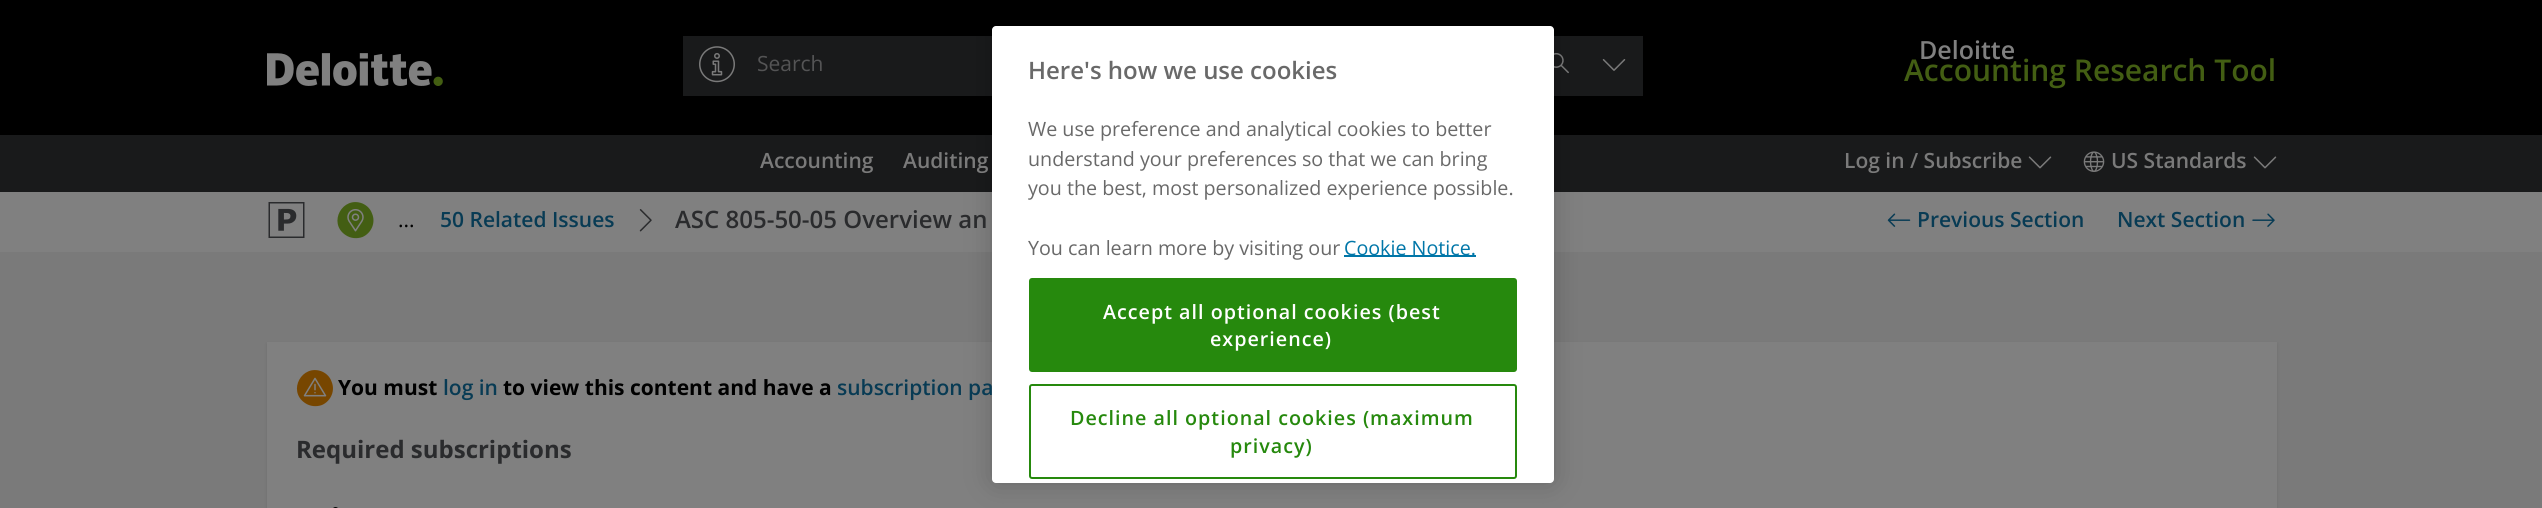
import math
import cairo



def draw_spaced(context, x, y, s, letter, word):
    context.move_to(x, y)
    for ch in s:
        context.show_text(ch)
        context.rel_move_to(letter + word * (ch == ' '), 0)


def rounded_rect(context, x, y, w, h, r):
    context.new_sub_path()
    for i, (u, v) in enumerate([(x + w - r, y + h - r), (x + r, y + h - r), (x + r, y + r), (x + w - r, y + r)]):
        context.arc(u, v, r, i * math.pi / 2, (i + 1) * math.pi / 2)
    context.close_path()


def draw_shadow(context, x, y, w, h, r, blur, alpha):
    context.push_group_with_content(cairo.Content.ALPHA)
    context.set_operator(cairo.Operator.SOURCE)
    for i in range(15, -16, -2):
        e = blur * i / 6
        if min(w, h) + 2 * e > 0:
            context.set_source_rgba(0, 0, 0, alpha * math.erfc((i - 1) / 8.5) / 2)
            rounded_rect(context, x - e, y - e, w + 2 * e, h + 2 * e, max(0, min(r + e + blur * .6, min(w, h) / 2 + e)))
            context.fill()
    context.mask(context.pop_group())


def draw_image(context, path, x, y, w, h):
    context.save()
    context.set_source_surface(cairo.ImageSurface.create_from_png(path), x, y)
    context.rectangle(x, y, w, h)
    context.fill()
    context.restore()


def draw(context):
    context.set_source_rgb(0, 0, 0)
    context.paint()
    draw_image(context, "images/1.png", 267, 53, 165, 33)
    draw_image(context, "images/2.png", 433, 76, 10, 10)
    context.set_source_rgb(25 / 255, 26 / 255, 27 / 255)
    context.rectangle(683, 36, 960, 60)
    context.fill()
    draw_image(context, "images/3.png", 699, 46, 36, 37)
    draw_image(context, "images/4.png", 711, 53, 12, 23)
    draw_image(context, "images/5.png", 1554, 52, 15, 22)
    draw_image(context, "images/6.png", 1602, 59, 24, 12)
    context.rectangle(0, 135, 2542, 57)
    context.fill()
    draw_image(context, "images/7.png", 2028, 156, 24, 13)
    draw_image(context, "images/8.png", 2083, 151, 22, 21)
    draw_image(context, "images/7.png", 2253, 156, 24, 13)
    context.set_source_rgb(122 / 255, 122 / 255, 122 / 255)
    context.rectangle(0, 252, 2542, 256)
    context.fill()
    context.set_source_rgb(128 / 255, 128 / 255, 128 / 255)
    context.rectangle(0, 192, 2542, 60)
    context.fill()
    context.set_source_rgb(0, 0, 0)
    draw_shadow(context, 267, 344, 2010, 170, 0, 2, 0.1)
    context.set_source_rgb(128 / 255, 128 / 255, 128 / 255)
    context.rectangle(267, 342, 2010, 166)
    context.fill()
    context.set_source_rgb(0, 0, 0)
    draw_shadow(context, 992, 26, 562, 457, 4, 13.5, 0.2)
    context.set_source_rgb(1, 1, 1)
    rounded_rect(context, 992, 26, 562, 457, 4)
    context.fill()
    context.set_source_rgb(0, 118 / 255, 168 / 255)
    context.rectangle(1344, 255, 132, 2)
    context.fill()
    context.set_source_rgb(38 / 255, 137 / 255, 13 / 255)
    rounded_rect(context, 1030, 279, 486, 92, 2)
    context.fill_preserve()
    context.stroke()
    rounded_rect(context, 1030, 385, 486, 93, 2)
    context.stroke()
    context.set_source_rgb(42 / 255, 43 / 255, 45 / 255)
    context.new_path()
    context.move_to(268.5, 202)
    context.line_to(304.5, 202)
    context.line_to(304.5, 238)
    context.line_to(268.5, 238)
    context.close_path()
    context.move_to(270, 203.5)
    context.line_to(270, 236.5)
    context.line_to(303, 236.5)
    context.line_to(303, 203.5)
    context.close_path()
    context.fill()
    draw_image(context, "images/9.png", 278, 208, 19, 23)
    context.set_source_rgb(67 / 255, 94 / 255, 19 / 255)
    context.new_path()
    context.move_to(372, 213.5)
    context.curve_to(376, 222.5, 371.5, 233, 362.5, 237)
    context.curve_to(357, 239, 350.5, 238.5, 345.5, 235)
    context.curve_to(327.5, 223, 342.5, 195.5, 362.5, 203.5)
    context.curve_to(367, 205.5, 370.5, 209, 372, 213.5)
    context.close_path()
    context.fill()
    draw_image(context, "images/10.png", 347, 209, 17, 23)
    draw_image(context, "images/11.png", 639, 209, 13, 23)
    draw_image(context, "images/12.png", 1887, 213, 24, 14)
    draw_image(context, "images/13.png", 2252, 213, 23, 14)
    context.set_source_rgb(119 / 255, 70 / 255, 0)
    context.new_path()
    context.move_to(331.5, 381.5)
    context.curve_to(335.5, 390.5, 331, 401, 322, 405)
    context.curve_to(316.5, 407, 310, 406.5, 305, 403)
    context.curve_to(287, 391, 302, 363.5, 322, 371.5)
    context.curve_to(326.5, 373.5, 330, 377, 331.5, 381.5)
    context.close_path()
    context.fill()
    draw_image(context, "images/14.png", 303, 377, 24, 20)
    context.set_source_rgb(0, 0, 0)
    rounded_rect(context, 332, 507, 7, 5, 3.5)
    context.fill()
    context.select_font_face("Open Sans")
    context.set_font_size(21)
    context.set_source_rgb(84 / 255, 84 / 255, 85 / 255)
    context.move_to(757, 71)
    context.show_text("Search")
    context.select_font_face("Open Sans SemiBold")
    context.set_font_size(25)
    context.set_source_rgb(128 / 255, 128 / 255, 128 / 255)
    context.move_to(1919, 59)
    context.show_text("Deloitte")
    context.set_font_size(30)
    context.set_source_rgb(67 / 255, 94 / 255, 19 / 255)
    context.move_to(1904, 81)
    context.show_text("Accounting Research Tool")
    context.set_font_size(21)
    context.set_source_rgb(122 / 255, 122 / 255, 122 / 255)
    context.move_to(760, 168)
    context.show_text("Accounting")
    context.move_to(903, 168)
    context.show_text("Auditing")
    context.move_to(1844, 168)
    context.show_text("Log in / Subscribe")
    context.move_to(2111, 168)
    context.show_text("US Standards")
    context.set_font_size(24)
    context.set_source_rgb(105 / 255, 105 / 255, 105 / 255)
    context.move_to(1028, 79)
    context.show_text("Here's how we use cookies")
    context.select_font_face("Open Sans")
    context.set_font_size(19.7)
    context.move_to(1028, 136)
    context.show_text("We use preference and analytical cookies to better")
    context.move_to(1028, 166)
    context.show_text("understand your preferences so that we can bring")
    context.move_to(1028, 195)
    context.show_text("you the best, most personalized experience possible.")
    context.move_to(1028, 255)
    context.show_text("You can learn more by visiting our")
    context.set_source_rgb(0, 118 / 255, 168 / 255)
    context.move_to(1344, 255)
    context.show_text("Cookie Notice.")
    context.select_font_face("Open Sans SemiBold")
    context.set_source_rgb(1, 1, 1)
    draw_spaced(context, 1103, 319, "Accept all optional cookies (best", 1, 0)
    draw_spaced(context, 1210, 346, "experience)", 1, 0)
    context.set_source_rgb(38 / 255, 137 / 255, 13 / 255)
    draw_spaced(context, 1070, 425, "Decline all optional cookies (maximum", 1, 0)
    draw_spaced(context, 1230, 453, "privacy)", 1, 0)
    context.select_font_face("Open Sans")
    context.set_font_size(21)
    context.set_source_rgb(0, 0, 0)
    context.move_to(398, 227)
    context.show_text("...")
    context.select_font_face("Open Sans SemiBold")
    context.set_source_rgb(8 / 255, 59 / 255, 84 / 255)
    context.move_to(440, 227)
    context.show_text("50 Related Issues")
    context.set_font_size(24)
    context.set_source_rgb(42 / 255, 43 / 255, 45 / 255)
    context.move_to(675, 228)
    context.show_text("ASC 805-50-05 Overview an")
    context.set_font_size(21)
    context.set_source_rgb(8 / 255, 59 / 255, 84 / 255)
    context.move_to(1917, 227)
    context.show_text("Previous Section")
    context.move_to(2117, 227)
    context.show_text("Next Section")
    context.select_font_face("Open Sans", cairo.FontSlant.NORMAL, cairo.FontWeight.BOLD)
    context.set_source_rgb(0, 0, 0)
    context.move_to(338, 395)
    context.show_text("You must")
    context.select_font_face("Open Sans SemiBold")
    context.set_source_rgb(8 / 255, 59 / 255, 84 / 255)
    context.move_to(443, 395)
    context.show_text("log in")
    context.select_font_face("Open Sans", cairo.FontSlant.NORMAL, cairo.FontWeight.BOLD)
    context.set_source_rgb(0, 0, 0)
    context.move_to(503, 395)
    context.show_text("to view this content and have a")
    context.select_font_face("Open Sans SemiBold")
    context.set_source_rgb(8 / 255, 59 / 255, 84 / 255)
    context.move_to(837, 395)
    context.show_text("subscription pa")
    context.select_font_face("Open Sans", cairo.FontSlant.NORMAL, cairo.FontWeight.BOLD)
    context.set_font_size(24)
    context.set_source_rgb(42 / 255, 43 / 255, 45 / 255)
    context.move_to(296, 458)
    context.show_text("Required subscriptions")


surface = cairo.ImageSurface(cairo.Format.RGB24, 2542, 508)
context = cairo.Context(surface)
options = cairo.FontOptions()
options.set_hint_metrics(cairo.HintMetrics.OFF)
options.set_hint_style(cairo.HintStyle.NONE)
context.set_font_options(options)
context.set_miter_limit(4)
draw(context)
surface.write_to_png("out.png")
